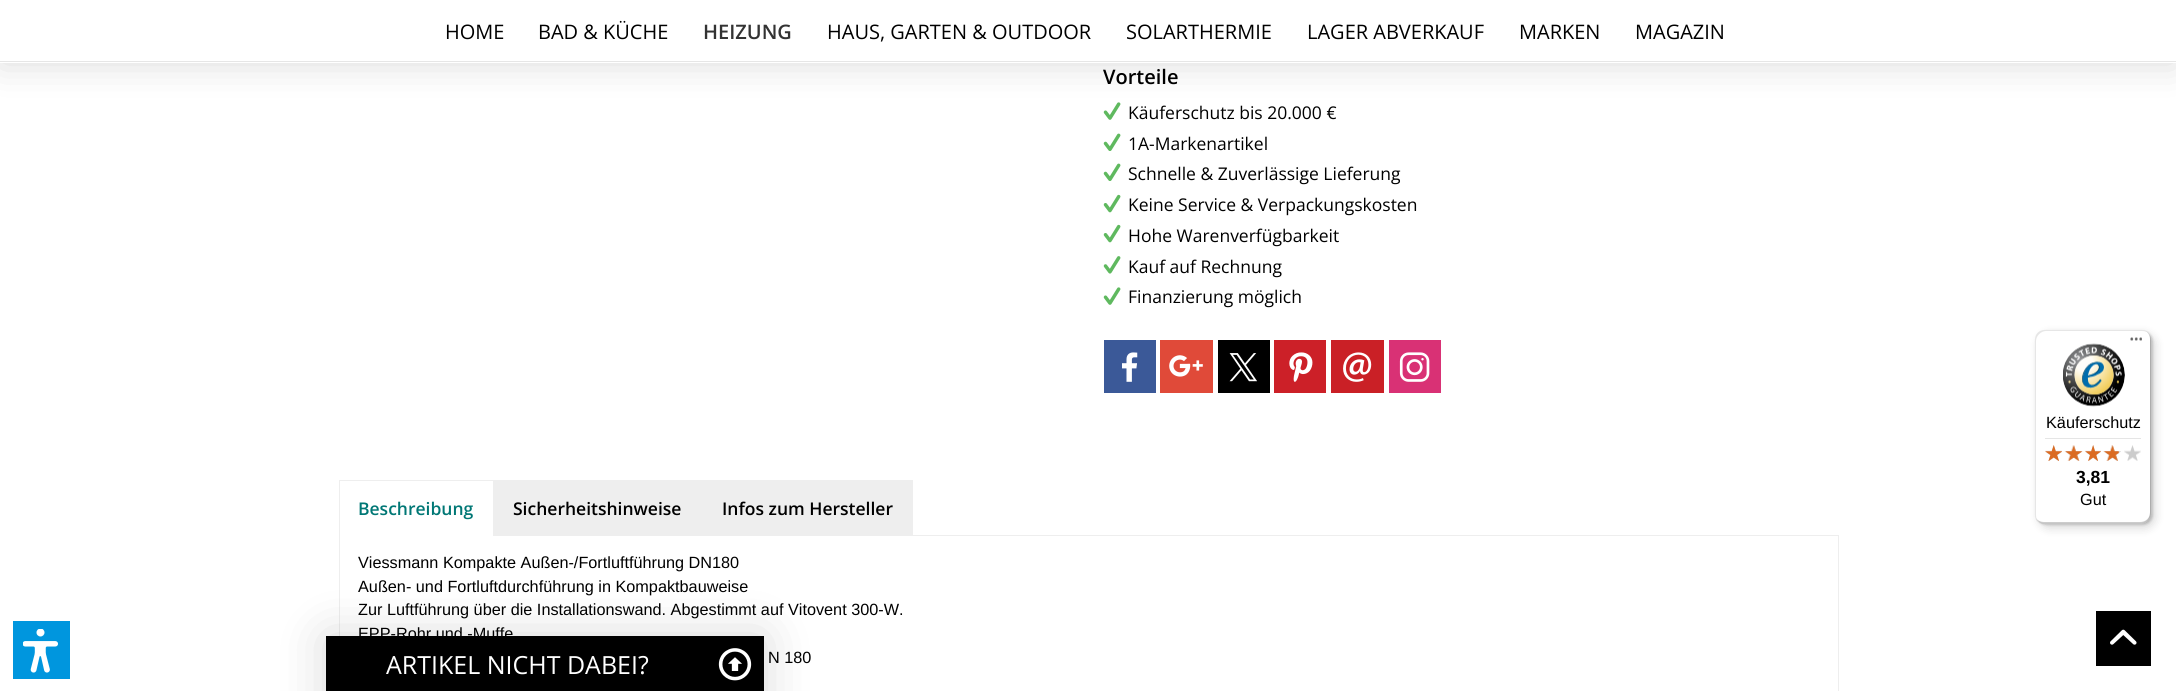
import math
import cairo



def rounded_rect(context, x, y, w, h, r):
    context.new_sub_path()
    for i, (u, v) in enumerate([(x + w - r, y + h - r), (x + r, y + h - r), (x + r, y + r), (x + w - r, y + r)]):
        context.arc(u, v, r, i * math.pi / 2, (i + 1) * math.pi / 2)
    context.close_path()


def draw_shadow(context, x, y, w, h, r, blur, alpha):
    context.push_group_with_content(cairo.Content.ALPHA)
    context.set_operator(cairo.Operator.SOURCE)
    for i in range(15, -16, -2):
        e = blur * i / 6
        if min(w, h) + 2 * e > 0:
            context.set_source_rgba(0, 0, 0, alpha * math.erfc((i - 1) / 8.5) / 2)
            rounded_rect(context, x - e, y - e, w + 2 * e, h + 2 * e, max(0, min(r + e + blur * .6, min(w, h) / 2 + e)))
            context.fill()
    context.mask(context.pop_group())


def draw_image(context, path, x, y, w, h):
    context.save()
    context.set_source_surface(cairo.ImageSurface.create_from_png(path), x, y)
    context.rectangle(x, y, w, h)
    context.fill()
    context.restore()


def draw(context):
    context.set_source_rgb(1, 1, 1)
    context.paint()
    draw_image(context, "images/1.png", 1103, 102, 18, 18)
    context.set_source_rgb(0, 0, 0)
    draw_shadow(context, 0, 0, 2176, 63, 0, 19, 0.15)
    context.set_source_rgb(1, 1, 1)
    context.rectangle(0, 0, 2176, 63)
    context.fill()
    context.set_source_rgb(230 / 255, 230 / 255, 230 / 255)
    context.rectangle(0, 61, 2176, 1)
    context.fill()
    draw_image(context, "images/2.png", 1103, 133, 18, 18)
    draw_image(context, "images/2.png", 1103, 163, 18, 18)
    draw_image(context, "images/3.png", 1103, 194, 18, 19)
    draw_image(context, "images/3.png", 1103, 224, 18, 19)
    draw_image(context, "images/4.png", 1103, 256, 18, 18)
    draw_image(context, "images/1.png", 1103, 287, 18, 18)
    context.set_source_rgb(59 / 255, 89 / 255, 152 / 255)
    context.rectangle(1104, 340, 52, 53)
    context.fill()
    draw_image(context, "images/5.png", 1122, 352, 16, 30)
    context.set_source_rgb(224 / 255, 74 / 255, 57 / 255)
    context.rectangle(1160, 340, 53, 53)
    context.fill()
    draw_image(context, "images/6.png", 1169, 355, 34, 22)
    context.set_source_rgb(0, 0, 0)
    context.rectangle(1218, 340, 52, 53)
    context.fill()
    draw_image(context, "images/7.png", 1229, 353, 28, 29)
    context.set_source_rgb(204 / 255, 32 / 255, 40 / 255)
    context.rectangle(1274, 340, 52, 53)
    context.fill()
    draw_image(context, "images/8.png", 1289, 352, 24, 30)
    context.set_source_rgb(202 / 255, 32 / 255, 38 / 255)
    context.rectangle(1331, 340, 53, 53)
    context.fill()
    draw_image(context, "images/9.png", 1343, 352, 29, 30)
    context.set_source_rgb(217 / 255, 49 / 255, 117 / 255)
    context.rectangle(1389, 340, 52, 53)
    context.fill()
    draw_image(context, "images/10.png", 1399, 352, 31, 30)
    context.rectangle(339.5, 535.5, 1499, 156)
    context.set_source_rgb(238 / 255, 238 / 255, 238 / 255)
    context.set_line_width(1)
    context.stroke()
    context.set_source_rgb(1, 1, 1)
    context.rectangle(340, 535, 153, 1)
    context.fill()
    context.set_source_rgb(238 / 255, 238 / 255, 238 / 255)
    context.rectangle(339, 480, 155, 1)
    context.fill()
    context.rectangle(493, 480, 1, 56)
    context.fill()
    context.rectangle(339, 480, 1, 56)
    context.fill()
    context.rectangle(494, 480, 419, 55)
    context.fill()
    context.set_source_rgb(0, 0, 0)
    context.rectangle(2096, 611, 55, 55)
    context.fill()
    draw_image(context, "images/11.png", 2110, 629, 27, 16)
    context.set_source_rgb(0, 0, 0)
    draw_shadow(context, 326, 636, 438, 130, 0, 25, 0.15)
    context.set_source_rgb(0, 0, 0)
    context.rectangle(326, 636, 438, 55)
    context.fill()
    draw_image(context, "images/12.png", 718, 648, 34, 33)
    context.set_source_rgb(0, 0, 0)
    draw_shadow(context, 2039, 334, 116, 194, 10, 5, 0.15)
    draw_shadow(context, 2036, 331, 117, 194, 10, 1, 0.15)
    context.set_source_rgb(1, 1, 1)
    rounded_rect(context, 2035, 330, 116, 194, 10)
    context.fill()
    context.set_source_rgba(0, 0, 0, 0.1)
    context.new_path()
    context.move_to(2046, 331)
    context.line_to(2142, 331)
    context.curve_to(2145, 331, 2147, 332, 2149, 333)
    context.curve_to(2147, 331, 2144, 330, 2141, 330)
    context.line_to(2045, 330)
    context.curve_to(2039, 330, 2035, 334, 2035, 340)
    context.line_to(2035, 514)
    context.curve_to(2035, 517, 2036, 520, 2038, 522)
    context.curve_to(2037, 520, 2036, 518, 2036, 515)
    context.line_to(2036, 341)
    context.curve_to(2036, 336, 2041, 331, 2046, 331)
    context.close_path()
    context.fill()
    context.set_source_rgba(0, 0, 0, 0.2)
    context.new_path()
    context.move_to(2036, 518)
    context.curve_to(2038, 522, 2041, 524, 2045, 524)
    context.line_to(2141, 524)
    context.curve_to(2147, 524, 2151, 520, 2151, 514)
    context.line_to(2151, 340)
    context.curve_to(2151, 338, 2150, 335, 2149, 334)
    context.curve_to(2150, 335, 2150, 337, 2150, 339)
    context.line_to(2150, 512)
    context.curve_to(2150, 518, 2146, 522, 2140, 522)
    context.line_to(2044, 522)
    context.curve_to(2041, 522, 2038, 521, 2036, 518)
    context.close_path()
    context.fill()
    context.set_source_rgba(50 / 255, 50 / 255, 50 / 255, 0.2)
    context.new_path()
    context.move_to(2037, 520)
    context.curve_to(2039, 523, 2042, 524, 2045, 524)
    context.line_to(2141, 524)
    context.curve_to(2147, 524, 2151, 520, 2151, 514)
    context.line_to(2151, 340)
    context.curve_to(2151, 337, 2150, 334, 2147, 332)
    context.curve_to(2149, 334, 2150, 337, 2150, 339)
    context.line_to(2150, 513)
    context.curve_to(2150, 519, 2146, 523, 2140, 523)
    context.line_to(2044, 523)
    context.curve_to(2042, 523, 2039, 522, 2037, 520)
    context.close_path()
    context.fill()
    draw_image(context, "images/13.png", 2130, 337, 12, 4)
    context.set_source_rgba(1, 1, 1, 0.3)
    context.new_path()
    context.move_to(2037, 520)
    context.curve_to(2039, 523, 2042, 524, 2045, 524)
    context.line_to(2141, 524)
    context.curve_to(2147, 524, 2151, 520, 2151, 514)
    context.line_to(2151, 513)
    context.curve_to(2151, 519, 2146, 523, 2141, 523)
    context.line_to(2044, 523)
    context.curve_to(2042, 523, 2039, 522, 2037, 520)
    context.close_path()
    context.fill()
    draw_image(context, "images/14.png", 2063, 343, 62, 64)
    context.set_source_rgb(229 / 255, 229 / 255, 229 / 255)
    context.rectangle(2045, 438, 96, 1)
    context.fill()
    draw_image(context, "images/15.png", 2045, 445, 17, 16)
    draw_image(context, "images/16.png", 2065, 445, 17, 16)
    draw_image(context, "images/17.png", 2085, 445, 16, 16)
    draw_image(context, "images/18.png", 2103, 445, 18, 16)
    draw_image(context, "images/19.png", 2124, 445, 17, 16)
    draw_image(context, "images/20.png", 2045, 445, 17, 16)
    draw_image(context, "images/21.png", 2064, 445, 19, 16)
    draw_image(context, "images/22.png", 2085, 445, 16, 16)
    draw_image(context, "images/23.png", 2103, 445, 16, 16)
    context.set_source_rgb(0, 150 / 255, 222 / 255)
    context.rectangle(13, 621, 57, 58)
    context.fill()
    draw_image(context, "images/24.png", 23, 629, 35, 44)
    context.select_font_face("Open Sans")
    context.set_font_size(20)
    context.set_source_rgb(0, 0, 0)
    context.move_to(445, 39)
    context.show_text("HOME")
    context.move_to(538, 39)
    context.show_text("BAD & KÜCHE")
    context.select_font_face("Open Sans SemiBold")
    context.set_source_rgb(51 / 255, 51 / 255, 51 / 255)
    context.move_to(703, 39)
    context.show_text("HEIZUNG")
    context.select_font_face("Open Sans")
    context.set_source_rgb(0, 0, 0)
    context.move_to(827, 39)
    context.show_text("HAUS, GARTEN & OUTDOOR")
    context.move_to(1126, 39)
    context.show_text("SOLARTHERMIE")
    context.move_to(1307, 39)
    context.show_text("LAGER ABVERKAUF")
    context.move_to(1519, 39)
    context.show_text("MARKEN")
    context.move_to(1635, 39)
    context.show_text("MAGAZIN")
    context.select_font_face("Open Sans SemiBold")
    context.move_to(1103, 84)
    context.show_text("Vorteile")
    context.select_font_face("Open Sans")
    context.set_font_size(17.5)
    context.move_to(1128, 119)
    context.show_text("Käuferschutz bis 20.000 €")
    context.move_to(1128, 150)
    context.show_text("1A-Markenartikel")
    context.move_to(1128, 180)
    context.show_text("Schnelle & Zuverlässige Lieferung")
    context.move_to(1128, 211)
    context.show_text("Keine Service & Verpackungskosten")
    context.move_to(1128, 242)
    context.show_text("Hohe Warenverfügbarkeit")
    context.move_to(1128, 273)
    context.show_text("Kauf auf Rechnung")
    context.move_to(1128, 303)
    context.show_text("Finanzierung möglich")
    context.select_font_face("Open Sans SemiBold")
    context.set_source_rgb(0, 119 / 255, 117 / 255)
    context.move_to(358, 515)
    context.show_text("Beschreibung")
    context.set_source_rgb(0, 0, 0)
    context.move_to(513, 515)
    context.show_text("Sicherheitshinweise")
    context.move_to(722, 515)
    context.show_text("Infos zum Hersteller")
    context.select_font_face("Liberation Sans")
    context.set_font_size(16.25)
    context.move_to(358, 568)
    context.show_text("Viessmann Kompakte Außen-/Fortluftführung DN180")
    context.move_to(358, 592)
    context.show_text("Außen- und Fortluftdurchführung in Kompaktbauweise")
    context.move_to(358, 615)
    context.show_text("Zur Luftführung über die Installationswand. Abgestimmt auf Vitovent 300-W.")
    context.move_to(358, 639)
    context.show_text("EPP-Rohr und -Muffe")
    context.move_to(768, 663)
    context.show_text("N 180")
    context.select_font_face("Open Sans")
    context.set_font_size(25)
    context.set_source_rgb(1, 1, 1)
    context.move_to(386, 674)
    context.show_text("ARTIKEL NICHT DABEI?")
    context.select_font_face("Liberation Sans")
    context.set_font_size(16.25)
    context.set_source_rgb(0, 0, 0)
    context.move_to(2046, 428)
    context.show_text("Käuferschutz")
    context.select_font_face("Liberation Sans", cairo.FontSlant.NORMAL, cairo.FontWeight.BOLD)
    context.set_font_size(17.5)
    context.move_to(2076, 483)
    context.show_text("3,81")
    context.select_font_face("Liberation Sans")
    context.set_font_size(16.25)
    context.move_to(2080, 505)
    context.show_text("Gut")


surface = cairo.ImageSurface(cairo.Format.RGB24, 2176, 691)
context = cairo.Context(surface)
options = cairo.FontOptions()
options.set_hint_metrics(cairo.HintMetrics.OFF)
options.set_hint_style(cairo.HintStyle.NONE)
context.set_font_options(options)
context.set_miter_limit(4)
draw(context)
surface.write_to_png("out.png")
